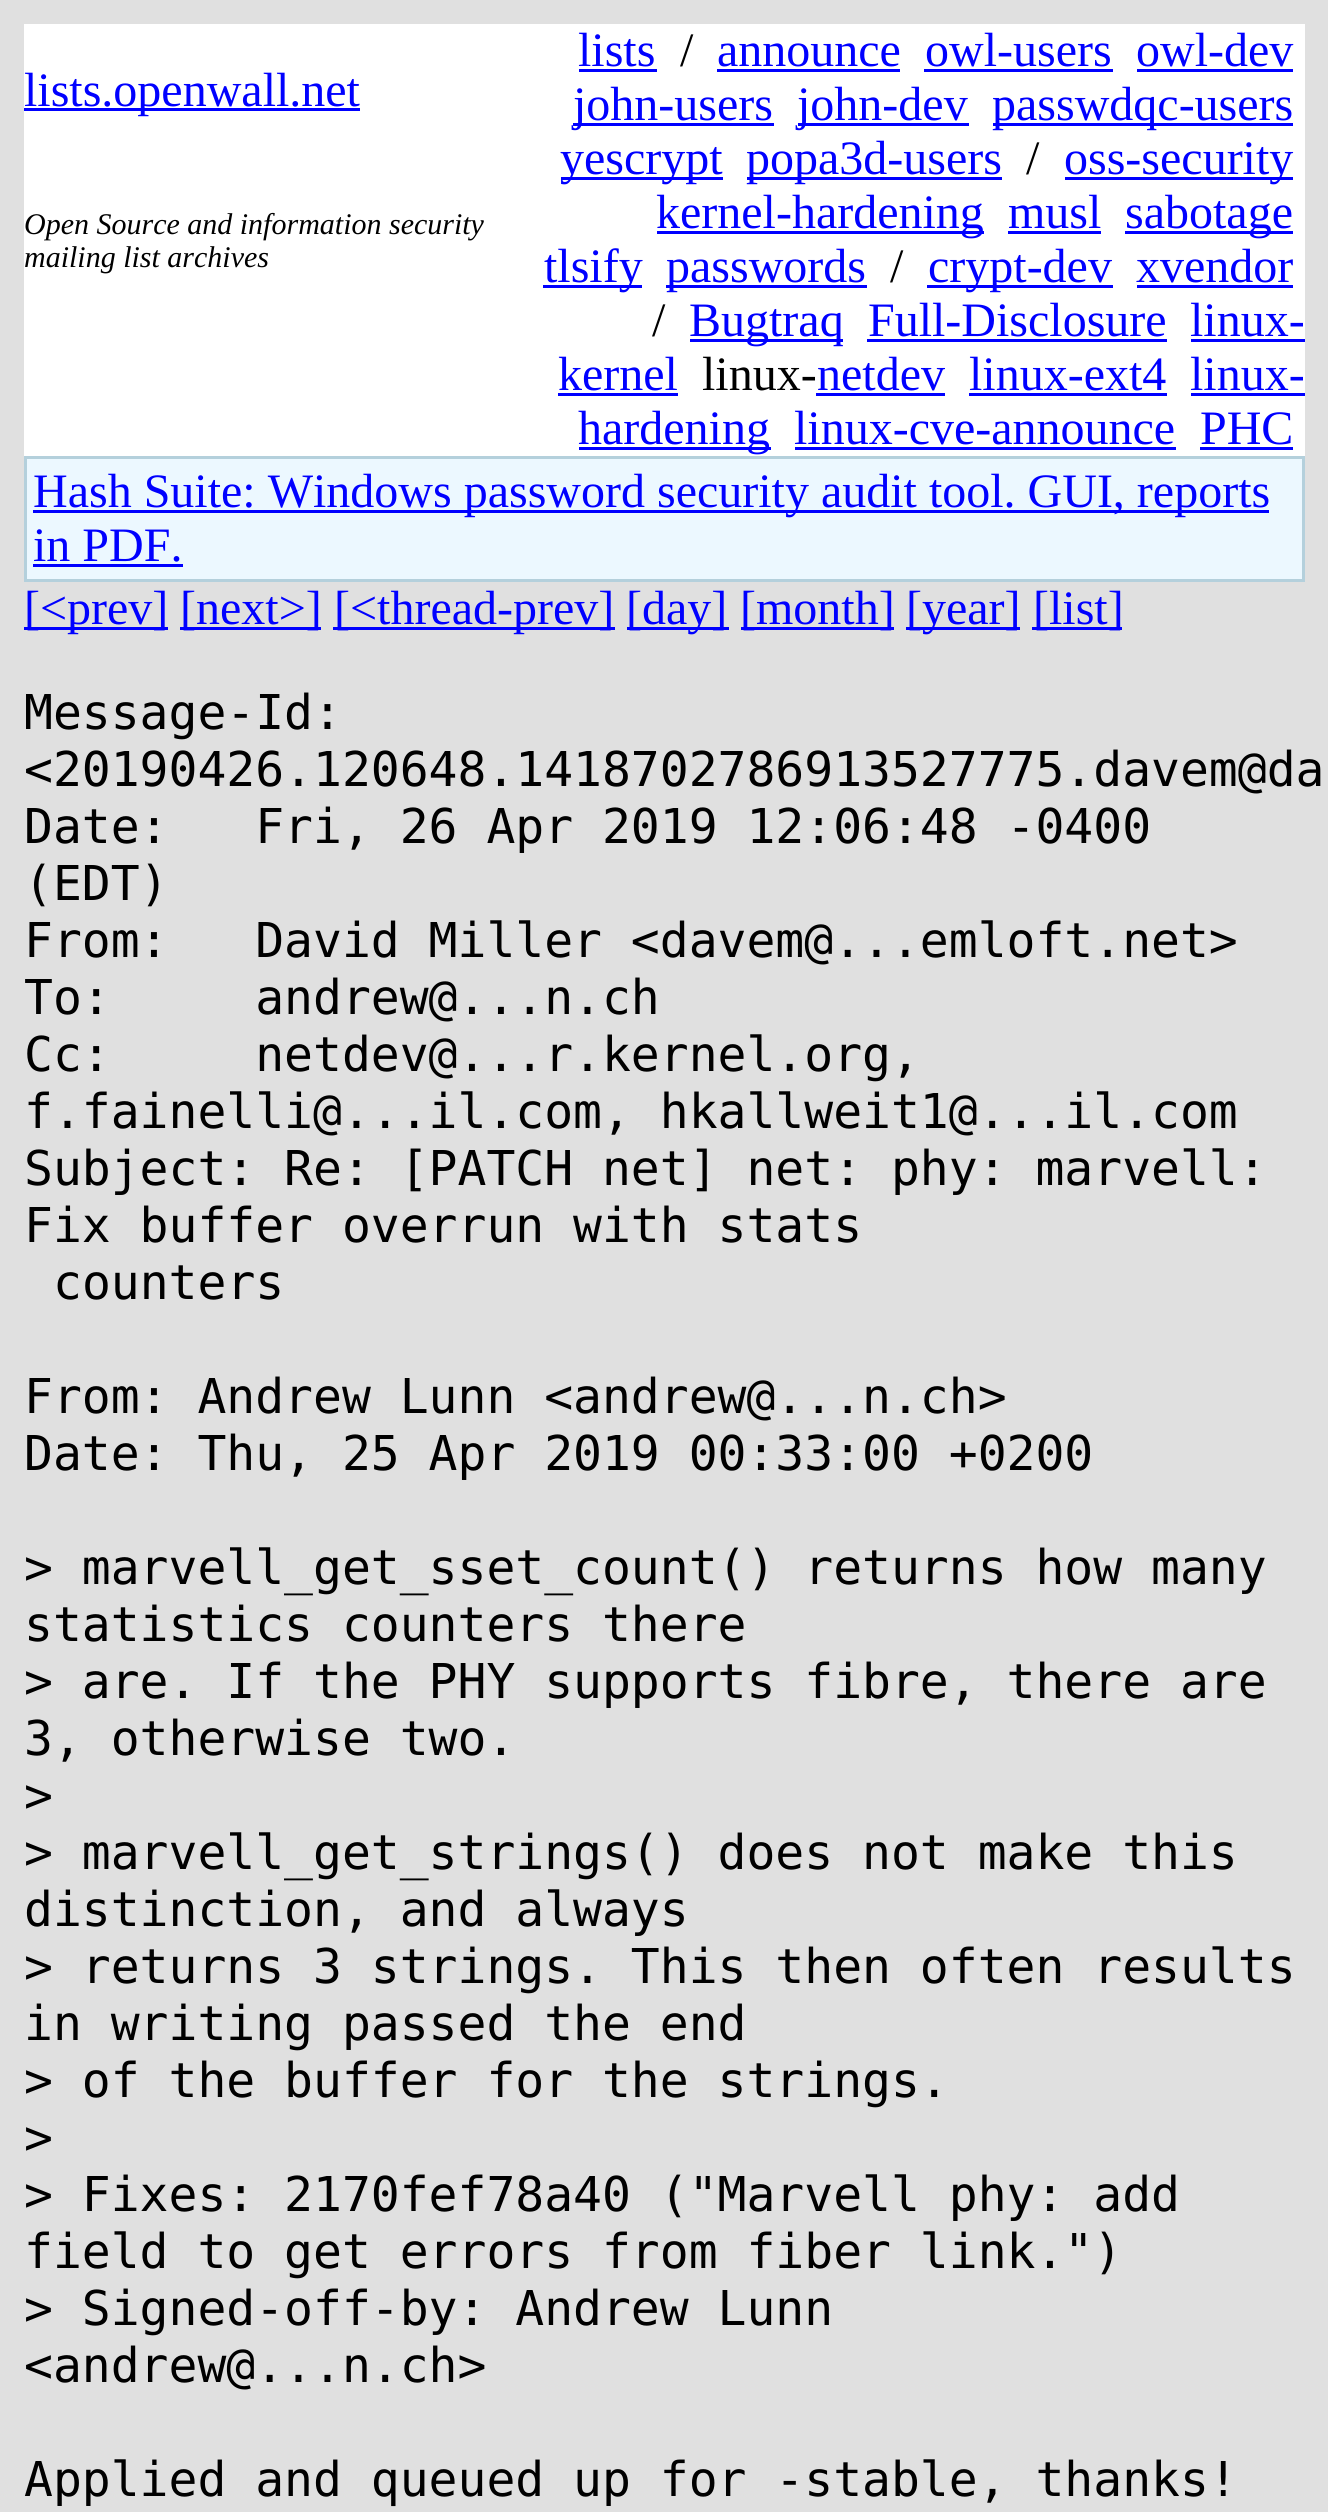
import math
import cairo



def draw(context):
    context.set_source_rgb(224 / 255, 224 / 255, 224 / 255)
    context.paint()
    context.set_source_rgb(1, 1, 1)
    context.rectangle(24, 24, 1281, 432)
    context.fill()
    context.set_source_rgb(0, 0, 1)
    context.rectangle(24, 108, 336, 3)
    context.fill()
    context.rectangle(579, 69, 78, 3)
    context.fill()
    context.rectangle(717, 69, 183, 3)
    context.fill()
    context.rectangle(924, 69, 189, 3)
    context.fill()
    context.rectangle(1137, 69, 156, 3)
    context.fill()
    context.rectangle(573, 123, 201, 3)
    context.fill()
    context.rectangle(798, 123, 171, 3)
    context.fill()
    context.rectangle(993, 123, 300, 3)
    context.fill()
    context.rectangle(561, 177, 162, 3)
    context.fill()
    context.rectangle(747, 177, 255, 3)
    context.fill()
    context.rectangle(1065, 177, 228, 3)
    context.fill()
    context.rectangle(657, 231, 327, 3)
    context.fill()
    context.rectangle(1008, 231, 93, 3)
    context.fill()
    context.rectangle(1125, 231, 168, 3)
    context.fill()
    context.rectangle(543, 285, 99, 3)
    context.fill()
    context.rectangle(666, 285, 201, 3)
    context.fill()
    context.rectangle(927, 285, 186, 3)
    context.fill()
    context.rectangle(1137, 285, 156, 3)
    context.fill()
    context.rectangle(690, 339, 153, 3)
    context.fill()
    context.rectangle(867, 339, 300, 3)
    context.fill()
    context.rectangle(1191, 339, 114, 3)
    context.fill()
    context.rectangle(558, 393, 120, 3)
    context.fill()
    context.rectangle(816, 393, 129, 3)
    context.fill()
    context.rectangle(969, 393, 198, 3)
    context.fill()
    context.rectangle(1191, 393, 114, 3)
    context.fill()
    context.rectangle(579, 447, 192, 3)
    context.fill()
    context.rectangle(795, 447, 381, 3)
    context.fill()
    context.rectangle(1200, 447, 93, 3)
    context.fill()
    context.set_source_rgb(180 / 255, 208 / 255, 220 / 255)
    context.rectangle(24, 456, 1281, 126)
    context.fill()
    context.set_source_rgb(236 / 255, 248 / 255, 1)
    context.rectangle(27, 459, 1275, 120)
    context.fill()
    context.set_source_rgb(0, 0, 1)
    context.rectangle(33, 510, 1236, 3)
    context.fill()
    context.rectangle(33, 564, 150, 3)
    context.fill()
    context.rectangle(24, 627, 144, 3)
    context.fill()
    context.rectangle(180, 627, 141, 3)
    context.fill()
    context.rectangle(333, 627, 282, 3)
    context.fill()
    context.rectangle(627, 627, 102, 3)
    context.fill()
    context.rectangle(741, 627, 153, 3)
    context.fill()
    context.rectangle(906, 627, 114, 3)
    context.fill()
    context.rectangle(1032, 627, 90, 3)
    context.fill()
    context.select_font_face("Liberation Serif")
    context.set_font_size(48)
    context.move_to(24, 106)
    context.show_text("lists.openwall.net")
    context.move_to(578, 66)
    context.show_text("lists")
    context.set_source_rgb(0, 0, 0)
    context.move_to(680, 66)
    context.show_text("/")
    context.set_source_rgb(0, 0, 1)
    context.move_to(717, 66)
    context.show_text("announce")
    context.move_to(925, 66)
    context.show_text("owl-users")
    context.move_to(1136, 66)
    context.show_text("owl-dev")
    context.move_to(573, 120)
    context.show_text("john-users")
    context.move_to(797, 120)
    context.show_text("john-dev")
    context.move_to(992, 120)
    context.show_text("passwdqc-users")
    context.move_to(560, 174)
    context.show_text("yescrypt")
    context.move_to(746, 174)
    context.show_text("popa3d-users")
    context.set_source_rgb(0, 0, 0)
    context.move_to(1026, 174)
    context.show_text("/")
    context.set_source_rgb(0, 0, 1)
    context.move_to(1064, 174)
    context.show_text("oss-security")
    context.move_to(656, 228)
    context.show_text("kernel-hardening")
    context.move_to(1008, 228)
    context.show_text("musl")
    context.move_to(1125, 228)
    context.show_text("sabotage")
    context.move_to(544, 282)
    context.show_text("tlsify")
    context.move_to(666, 282)
    context.show_text("passwords")
    context.set_source_rgb(0, 0, 0)
    context.move_to(890, 282)
    context.show_text("/")
    context.set_source_rgb(0, 0, 1)
    context.move_to(928, 282)
    context.show_text("crypt-dev")
    context.move_to(1136, 282)
    context.show_text("xvendor")
    context.set_source_rgb(0, 0, 0)
    context.move_to(652, 336)
    context.show_text("/")
    context.set_source_rgb(0, 0, 1)
    context.move_to(689, 336)
    context.show_text("Bugtraq")
    context.move_to(868, 336)
    context.show_text("Full-Disclosure")
    context.move_to(1190, 336)
    context.show_text("linux-")
    context.move_to(558, 390)
    context.show_text("kernel")
    context.set_source_rgb(0, 0, 0)
    context.move_to(702, 390)
    context.show_text("linux-")
    context.set_source_rgb(0, 0, 1)
    context.move_to(817, 390)
    context.show_text("netdev")
    context.move_to(969, 390)
    context.show_text("linux-ext4")
    context.move_to(1190, 390)
    context.show_text("linux-")
    context.move_to(578, 444)
    context.show_text("hardening")
    context.move_to(794, 444)
    context.show_text("linux-cve-announce")
    context.move_to(1200, 444)
    context.show_text("PHC")
    context.select_font_face("Liberation Serif", cairo.FontSlant.ITALIC)
    context.set_font_size(30)
    context.set_source_rgb(0, 0, 0)
    context.move_to(24, 234)
    context.show_text("Open Source and information security")
    context.move_to(24, 267)
    context.show_text("mailing list archives")
    context.select_font_face("Liberation Serif")
    context.set_font_size(48)
    context.set_source_rgb(0, 0, 1)
    context.move_to(33, 507)
    context.show_text("Hash Suite: Windows password security audit tool. GUI, reports")
    context.move_to(33, 561)
    context.show_text("in PDF.")
    context.move_to(24, 624)
    context.show_text("[<prev]")
    context.move_to(180, 624)
    context.show_text("[next>]")
    context.move_to(334, 624)
    context.show_text("[<thread-prev]")
    context.move_to(626, 624)
    context.show_text("[day]")
    context.move_to(740, 624)
    context.show_text("[month]")
    context.move_to(906, 624)
    context.show_text("[year]")
    context.move_to(1033, 624)
    context.show_text("[list]")
    context.select_font_face("DejaVu Sans Mono")
    context.set_source_rgb(0, 0, 0)
    context.move_to(24, 729)
    context.show_text("Message-Id:")
    context.move_to(24, 786)
    context.show_text("<20190426.120648.1418702786913527775.davem@da")
    context.move_to(24, 843)
    context.show_text("Date:   Fri, 26 Apr 2019 12:06:48 -0400")
    context.move_to(24, 900)
    context.show_text("(EDT)")
    context.move_to(24, 957)
    context.show_text("From:   David Miller <davem@...emloft.net>")
    context.move_to(24, 1014)
    context.show_text("To:     andrew@...n.ch")
    context.move_to(24, 1071)
    context.show_text("Cc:     netdev@...r.kernel.org,")
    context.move_to(24, 1128)
    context.show_text("f.fainelli@...il.com, hkallweit1@...il.com")
    context.move_to(24, 1185)
    context.show_text("Subject: Re: [PATCH net] net: phy: marvell:")
    context.move_to(24, 1242)
    context.show_text("Fix buffer overrun with stats")
    context.move_to(53, 1299)
    context.show_text("counters")
    context.move_to(24, 1413)
    context.show_text("From: Andrew Lunn <andrew@...n.ch>")
    context.move_to(24, 1470)
    context.show_text("Date: Thu, 25 Apr 2019 00:33:00 +0200")
    context.move_to(24, 1584)
    context.show_text("> marvell_get_sset_count() returns how many")
    context.move_to(24, 1641)
    context.show_text("statistics counters there")
    context.move_to(24, 1698)
    context.show_text("> are. If the PHY supports fibre, there are")
    context.move_to(24, 1755)
    context.show_text("3, otherwise two.")
    context.move_to(24, 1812)
    context.show_text(">")
    context.move_to(24, 1869)
    context.show_text("> marvell_get_strings() does not make this")
    context.move_to(24, 1926)
    context.show_text("distinction, and always")
    context.move_to(24, 1983)
    context.show_text("> returns 3 strings. This then often results")
    context.move_to(24, 2040)
    context.show_text("in writing passed the end")
    context.move_to(24, 2097)
    context.show_text("> of the buffer for the strings.")
    context.move_to(24, 2154)
    context.show_text(">")
    context.move_to(24, 2211)
    context.show_text("> Fixes: 2170fef78a40 (\"Marvell phy: add")
    context.move_to(24, 2268)
    context.show_text("field to get errors from fiber link.\")")
    context.move_to(24, 2325)
    context.show_text("> Signed-off-by: Andrew Lunn")
    context.move_to(24, 2382)
    context.show_text("<andrew@...n.ch>")
    context.move_to(24, 2496)
    context.show_text("Applied and queued up for -stable, thanks!")


surface = cairo.ImageSurface(cairo.Format.RGB24, 1328, 2512)
context = cairo.Context(surface)
options = cairo.FontOptions()
options.set_hint_metrics(cairo.HintMetrics.OFF)
options.set_hint_style(cairo.HintStyle.NONE)
context.set_font_options(options)
context.set_miter_limit(4)
draw(context)
surface.write_to_png("out.png")
